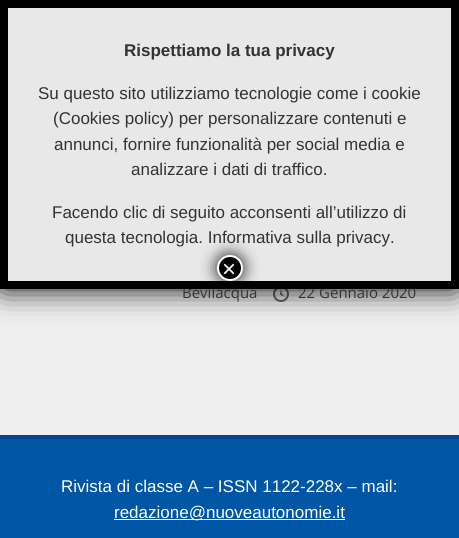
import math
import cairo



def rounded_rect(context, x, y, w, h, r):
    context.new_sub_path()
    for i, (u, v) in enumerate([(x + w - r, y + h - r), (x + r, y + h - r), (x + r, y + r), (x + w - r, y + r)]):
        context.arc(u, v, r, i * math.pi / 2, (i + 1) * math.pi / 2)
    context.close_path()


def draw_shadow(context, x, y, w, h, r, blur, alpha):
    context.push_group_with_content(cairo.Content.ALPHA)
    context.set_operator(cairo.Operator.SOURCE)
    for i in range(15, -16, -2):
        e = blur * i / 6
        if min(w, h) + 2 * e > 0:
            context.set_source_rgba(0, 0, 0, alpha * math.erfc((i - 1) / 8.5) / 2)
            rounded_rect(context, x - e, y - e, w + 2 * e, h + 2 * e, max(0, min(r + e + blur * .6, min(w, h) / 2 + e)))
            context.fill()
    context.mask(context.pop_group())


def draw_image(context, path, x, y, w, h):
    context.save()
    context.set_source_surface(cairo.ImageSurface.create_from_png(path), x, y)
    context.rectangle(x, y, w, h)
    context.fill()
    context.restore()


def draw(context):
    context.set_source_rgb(0, 85 / 255, 165 / 255)
    context.paint()
    context.set_source_rgb(239 / 255, 239 / 255, 239 / 255)
    context.rectangle(0, 289, 459, 146)
    context.fill()
    draw_image(context, "images/1.png", 273, 289, 16, 13)
    context.set_source_rgb(2 / 255, 2 / 255, 2 / 255)
    draw_shadow(context, 0, 0, 459, 289, 3, 15, 1)
    context.set_source_rgb(232 / 255, 232 / 255, 232 / 255)
    context.rectangle(8, 8, 443, 273)
    context.fill()
    context.set_source_rgb(0, 73 / 255, 142 / 255)
    context.rectangle(0, 435, 459, 4)
    context.fill()
    context.set_source_rgb(1, 1, 1)
    context.rectangle(114, 519, 231, 1)
    context.fill()
    context.select_font_face("Open Sans")
    context.set_font_size(15)
    context.set_source_rgb(51 / 255, 51 / 255, 51 / 255)
    context.move_to(182, 298)
    context.show_text("Bevilacqua")
    context.move_to(298, 298)
    context.show_text("22 Gennaio 2020")
    context.new_path()
    context.move_to(4, 4)
    context.line_to(455, 4)
    context.line_to(455, 285)
    context.line_to(4, 285)
    context.close_path()
    context.set_source_rgb(0, 0, 0)
    context.set_line_width(8)
    context.stroke()
    context.set_source_rgb(2 / 255, 2 / 255, 2 / 255)
    draw_shadow(context, 216, 254, 28, 28, 14, 7.5, 0.75)
    context.set_source_rgb(0, 0, 0)
    context.arc(230, 268, 12, 0, 2 * math.pi)
    context.fill_preserve()
    context.set_source_rgb(1, 1, 1)
    context.set_line_width(2)
    context.stroke()
    context.select_font_face("Liberation Sans")
    context.set_font_size(24)
    context.move_to(222, 277)
    context.show_text("×")
    context.set_font_size(17)
    context.set_source_rgb(51 / 255, 51 / 255, 51 / 255)
    context.move_to(65, 243)
    context.show_text("questa tecnologia. Informativa sulla privacy.")
    context.move_to(52, 218)
    context.show_text("Facendo clic di seguito acconsenti all’utilizzo di")
    context.move_to(131, 175)
    context.show_text("analizzare i dati di traffico.")
    context.move_to(54, 150)
    context.show_text("annunci, fornire funzionalità per social media e")
    context.move_to(53, 124)
    context.show_text("(Cookies policy) per personalizzare contenuti e")
    context.move_to(38, 99)
    context.show_text("Su questo sito utilizziamo tecnologie come i cookie")
    context.select_font_face("Liberation Sans", cairo.FontSlant.NORMAL, cairo.FontWeight.BOLD)
    context.move_to(124, 56)
    context.show_text("Rispettiamo la tua privacy")
    context.select_font_face("Liberation Sans")
    context.set_source_rgb(1, 1, 1)
    context.move_to(61, 492)
    context.show_text("Rivista di classe A – ISSN 1122-228x – mail:")
    context.move_to(114, 518)
    context.show_text("redazione@nuoveautonomie.it")


surface = cairo.ImageSurface(cairo.Format.RGB24, 459, 538)
context = cairo.Context(surface)
options = cairo.FontOptions()
options.set_hint_metrics(cairo.HintMetrics.OFF)
options.set_hint_style(cairo.HintStyle.NONE)
context.set_font_options(options)
context.set_miter_limit(4)
draw(context)
surface.write_to_png("out.png")
